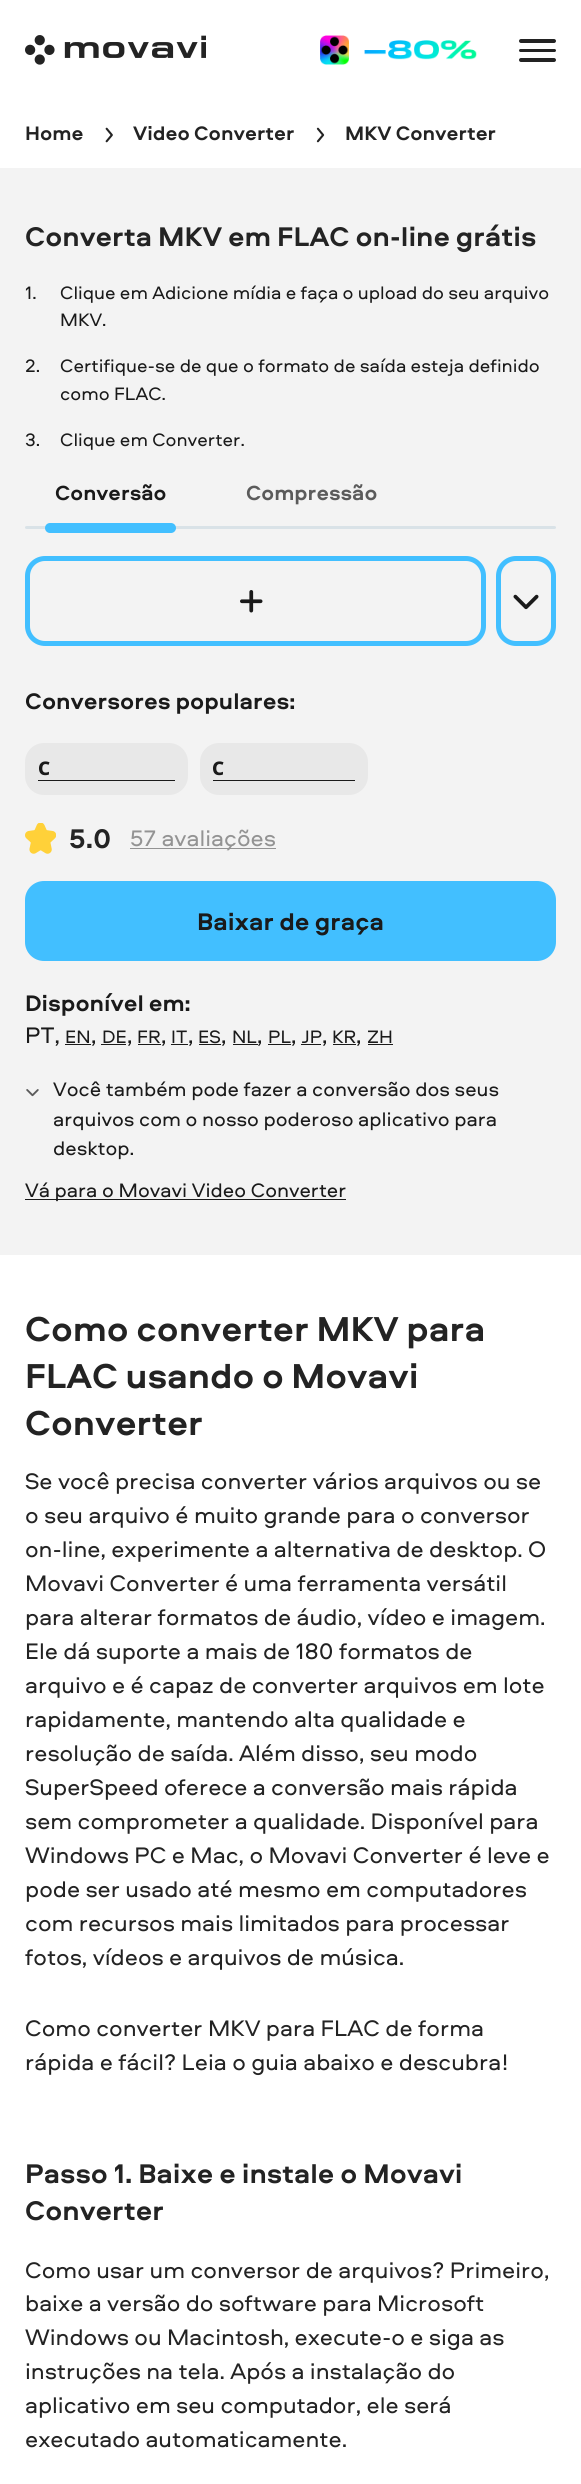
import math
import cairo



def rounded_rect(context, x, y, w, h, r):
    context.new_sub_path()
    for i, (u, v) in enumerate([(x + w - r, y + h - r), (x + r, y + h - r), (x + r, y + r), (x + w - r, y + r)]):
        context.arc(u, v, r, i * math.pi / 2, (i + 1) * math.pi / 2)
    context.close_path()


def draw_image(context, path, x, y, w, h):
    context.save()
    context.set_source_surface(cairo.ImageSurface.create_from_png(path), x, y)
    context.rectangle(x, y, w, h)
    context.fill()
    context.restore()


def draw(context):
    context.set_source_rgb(1, 1, 1)
    context.paint()
    draw_image(context, "images/1.png", 25, 35, 181, 30)
    draw_image(context, "images/2.png", 320, 35, 157, 30)
    context.set_source_rgb(35 / 255, 35 / 255, 35 / 255)
    rounded_rect(context, 519, 49, 37, 3, 1.5)
    context.fill()
    rounded_rect(context, 519, 39, 37, 4, 2)
    context.fill()
    rounded_rect(context, 519, 58, 37, 4, 2)
    context.fill()
    draw_image(context, "images/3.png", 105, 127, 8, 16)
    draw_image(context, "images/4.png", 316, 127, 9, 16)
    context.set_source_rgb(243 / 255, 243 / 255, 243 / 255)
    context.rectangle(0, 168, 581, 1087)
    context.fill()
    context.set_source_rgb(217 / 255, 226 / 255, 231 / 255)
    rounded_rect(context, 25, 526, 531, 3, 1.5)
    context.fill()
    context.set_source_rgb(66 / 255, 191 / 255, 1)
    rounded_rect(context, 45, 523, 131, 10, 5)
    context.fill()
    rounded_rect(context, 27.5, 558.5, 456, 85, 17.5)
    context.set_line_width(5)
    context.stroke()
    draw_image(context, "images/5.png", 240, 590, 23, 23)
    rounded_rect(context, 498.5, 558.5, 55, 85, 17.5)
    context.stroke()
    draw_image(context, "images/6.png", 513, 594, 26, 16)
    context.set_source_rgb(232 / 255, 232 / 255, 232 / 255)
    rounded_rect(context, 25, 743, 163, 52, 19)
    context.fill()
    context.set_source_rgb(26 / 255, 26 / 255, 26 / 255)
    context.rectangle(38, 780, 137, 1)
    context.fill()
    context.set_source_rgb(232 / 255, 232 / 255, 232 / 255)
    rounded_rect(context, 200, 743, 168, 52, 19)
    context.fill()
    context.set_source_rgb(26 / 255, 26 / 255, 26 / 255)
    context.rectangle(213, 780, 142, 1)
    context.fill()
    draw_image(context, "images/7.png", 25, 823, 31, 31)
    context.set_source_rgb(147 / 255, 147 / 255, 147 / 255)
    context.rectangle(130, 848, 146, 1)
    context.fill()
    context.set_source_rgb(66 / 255, 191 / 255, 1)
    rounded_rect(context, 25, 881, 531, 80, 19)
    context.fill()
    context.set_source_rgb(26 / 255, 26 / 255, 26 / 255)
    context.rectangle(65, 1044, 26, 1)
    context.fill()
    context.rectangle(101, 1044, 25, 1)
    context.fill()
    context.rectangle(138, 1044, 23, 1)
    context.fill()
    context.rectangle(171, 1044, 17, 1)
    context.fill()
    context.rectangle(199, 1044, 22, 1)
    context.fill()
    context.rectangle(233, 1044, 25, 1)
    context.fill()
    context.rectangle(268, 1044, 23, 1)
    context.fill()
    context.rectangle(301, 1044, 20, 1)
    context.fill()
    context.rectangle(333, 1044, 23, 1)
    context.fill()
    context.rectangle(368, 1044, 25, 1)
    context.fill()
    draw_image(context, "images/8.png", 26, 1089, 13, 8)
    context.rectangle(25, 1199, 321, 1)
    context.fill()
    context.select_font_face("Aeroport", cairo.FontSlant.NORMAL, cairo.FontWeight.BOLD)
    context.set_font_size(20.3)
    context.set_source_rgb(35 / 255, 35 / 255, 35 / 255)
    context.move_to(25, 140)
    context.show_text("Home")
    context.move_to(133, 140)
    context.show_text("Video Converter")
    context.move_to(345, 140)
    context.show_text("MKV Converter")
    context.set_font_size(28.1)
    context.move_to(25, 246)
    context.show_text("Converta MKV em FLAC on-line grátis")
    context.select_font_face("Aeroport")
    context.set_font_size(18.75)
    context.set_source_rgb(26 / 255, 26 / 255, 26 / 255)
    context.move_to(25, 299)
    context.show_text("1.")
    context.move_to(60, 299)
    context.show_text("Clique em Adicione mídia e faça o upload do seu arquivo")
    context.move_to(60, 326)
    context.show_text("MKV.")
    context.move_to(25, 372)
    context.show_text("2.")
    context.move_to(60, 372)
    context.show_text("Certifique-se de que o formato de saída esteja definido")
    context.move_to(60, 400)
    context.show_text("como FLAC.")
    context.move_to(25, 446)
    context.show_text("3.")
    context.move_to(60, 446)
    context.show_text("Clique em Converter.")
    context.select_font_face("Aeroport", cairo.FontSlant.NORMAL, cairo.FontWeight.BOLD)
    context.set_font_size(21.25)
    context.move_to(55, 500)
    context.show_text("Conversão")
    context.set_source_rgb(91 / 255, 91 / 255, 91 / 255)
    context.move_to(246, 500)
    context.show_text("Compressão")
    context.set_font_size(23.4)
    context.set_source_rgb(26 / 255, 26 / 255, 26 / 255)
    context.move_to(25, 709)
    context.show_text("Conversores populares:")
    context.select_font_face("Noto Sans ExtraBold")
    context.set_font_size(18.75)
    context.move_to(38, 775)
    context.show_text("C")
    context.move_to(212, 775)
    context.show_text("C")
    context.select_font_face("Aeroport", cairo.FontSlant.NORMAL, cairo.FontWeight.BOLD)
    context.set_font_size(28.1)
    context.set_source_rgb(35 / 255, 35 / 255, 35 / 255)
    context.move_to(69, 848)
    context.show_text("5.0")
    context.select_font_face("Aeroport")
    context.set_font_size(23.4)
    context.set_source_rgb(147 / 255, 147 / 255, 147 / 255)
    context.move_to(130, 846)
    context.show_text("57 avaliações")
    context.select_font_face("Aeroport", cairo.FontSlant.NORMAL, cairo.FontWeight.BOLD)
    context.set_font_size(25)
    context.set_source_rgb(26 / 255, 26 / 255, 26 / 255)
    context.move_to(197, 930)
    context.show_text("Baixar de graça")
    context.set_font_size(23.4)
    context.move_to(25, 1011)
    context.show_text("Disponível em:")
    context.select_font_face("Aeroport")
    context.move_to(25, 1043)
    context.show_text("PT,")
    context.set_font_size(18.75)
    context.move_to(65, 1043)
    context.show_text("EN")
    context.set_font_size(23.4)
    context.move_to(91, 1043)
    context.show_text(",")
    context.set_font_size(18.75)
    context.move_to(102, 1043)
    context.show_text("DE")
    context.set_font_size(23.4)
    context.move_to(127, 1043)
    context.show_text(",")
    context.set_font_size(18.75)
    context.move_to(137, 1043)
    context.show_text("FR")
    context.set_font_size(23.4)
    context.move_to(161, 1043)
    context.show_text(",")
    context.set_font_size(18.75)
    context.move_to(171, 1043)
    context.show_text("IT")
    context.set_font_size(23.4)
    context.move_to(188, 1043)
    context.show_text(",")
    context.set_font_size(18.75)
    context.move_to(198, 1043)
    context.show_text("ES")
    context.set_font_size(23.4)
    context.move_to(221, 1043)
    context.show_text(",")
    context.set_font_size(18.75)
    context.move_to(232, 1043)
    context.show_text("NL")
    context.set_font_size(23.4)
    context.move_to(257, 1043)
    context.show_text(",")
    context.set_font_size(18.75)
    context.move_to(268, 1043)
    context.show_text("PL")
    context.set_font_size(23.4)
    context.move_to(291, 1043)
    context.show_text(",")
    context.set_font_size(18.75)
    context.move_to(302, 1043)
    context.show_text("JP")
    context.set_font_size(23.4)
    context.move_to(322, 1043)
    context.show_text(",")
    context.set_font_size(18.75)
    context.move_to(332, 1043)
    context.show_text("KR")
    context.set_font_size(23.4)
    context.move_to(356, 1043)
    context.show_text(",")
    context.set_font_size(18.75)
    context.move_to(367, 1043)
    context.show_text("ZH")
    context.set_font_size(20.3)
    context.move_to(53, 1096)
    context.show_text("Você também pode fazer a conversão dos seus")
    context.move_to(53, 1126)
    context.show_text("arquivos com o nosso poderoso aplicativo para")
    context.move_to(53, 1155)
    context.show_text("desktop.")
    context.move_to(25, 1197)
    context.show_text("Vá para o Movavi Video Converter")
    context.select_font_face("Aeroport", cairo.FontSlant.NORMAL, cairo.FontWeight.BOLD)
    context.set_font_size(36)
    context.set_source_rgb(35 / 255, 35 / 255, 35 / 255)
    context.move_to(25, 1341)
    context.show_text("Como converter MKV para")
    context.move_to(25, 1388)
    context.show_text("FLAC usando o Movavi")
    context.move_to(25, 1435)
    context.show_text("Converter")
    context.select_font_face("Aeroport")
    context.set_font_size(23.4)
    context.move_to(25, 1489)
    context.show_text("Se você precisa converter vários arquivos ou se")
    context.move_to(25, 1523)
    context.show_text("o seu arquivo é muito grande para o conversor")
    context.move_to(25, 1557)
    context.show_text("on-line, experimente a alternativa de desktop. O")
    context.move_to(25, 1591)
    context.show_text("Movavi Converter é uma ferramenta versátil")
    context.move_to(25, 1625)
    context.show_text("para alterar formatos de áudio, vídeo e imagem.")
    context.move_to(25, 1659)
    context.show_text("Ele dá suporte a mais de 180 formatos de")
    context.move_to(25, 1693)
    context.show_text("arquivo e é capaz de converter arquivos em lote")
    context.move_to(25, 1727)
    context.show_text("rapidamente, mantendo alta qualidade e")
    context.move_to(25, 1761)
    context.show_text("resolução de saída. Além disso, seu modo")
    context.move_to(25, 1795)
    context.show_text("SuperSpeed oferece a conversão mais rápida")
    context.move_to(25, 1829)
    context.show_text("sem comprometer a qualidade. Disponível para")
    context.move_to(25, 1863)
    context.show_text("Windows PC e Mac, o Movavi Converter é leve e")
    context.move_to(25, 1897)
    context.show_text("pode ser usado até mesmo em computadores")
    context.move_to(25, 1931)
    context.show_text("com recursos mais limitados para processar")
    context.move_to(25, 1965)
    context.show_text("fotos, vídeos e arquivos de música.")
    context.move_to(25, 2036)
    context.show_text("Como converter MKV para FLAC de forma")
    context.move_to(25, 2070)
    context.show_text("rápida e fácil? Leia o guia abaixo e descubra!")
    context.select_font_face("Aeroport", cairo.FontSlant.NORMAL, cairo.FontWeight.BOLD)
    context.set_font_size(28.1)
    context.move_to(25, 2183)
    context.show_text("Passo 1. Baixe e instale o Movavi")
    context.move_to(25, 2220)
    context.show_text("Converter")
    context.select_font_face("Aeroport")
    context.set_font_size(23.4)
    context.move_to(25, 2278)
    context.show_text("Como usar um conversor de arquivos? Primeiro,")
    context.move_to(25, 2311)
    context.show_text("baixe a versão do software para Microsoft")
    context.move_to(25, 2345)
    context.show_text("Windows ou Macintosh, execute-o e siga as")
    context.move_to(25, 2379)
    context.show_text("instruções na tela. Após a instalação do")
    context.move_to(25, 2413)
    context.show_text("aplicativo em seu computador, ele será")
    context.move_to(25, 2447)
    context.show_text("executado automaticamente.")


surface = cairo.ImageSurface(cairo.Format.RGB24, 581, 2484)
context = cairo.Context(surface)
options = cairo.FontOptions()
options.set_hint_metrics(cairo.HintMetrics.OFF)
options.set_hint_style(cairo.HintStyle.NONE)
context.set_font_options(options)
context.set_miter_limit(4)
draw(context)
surface.write_to_png("out.png")
